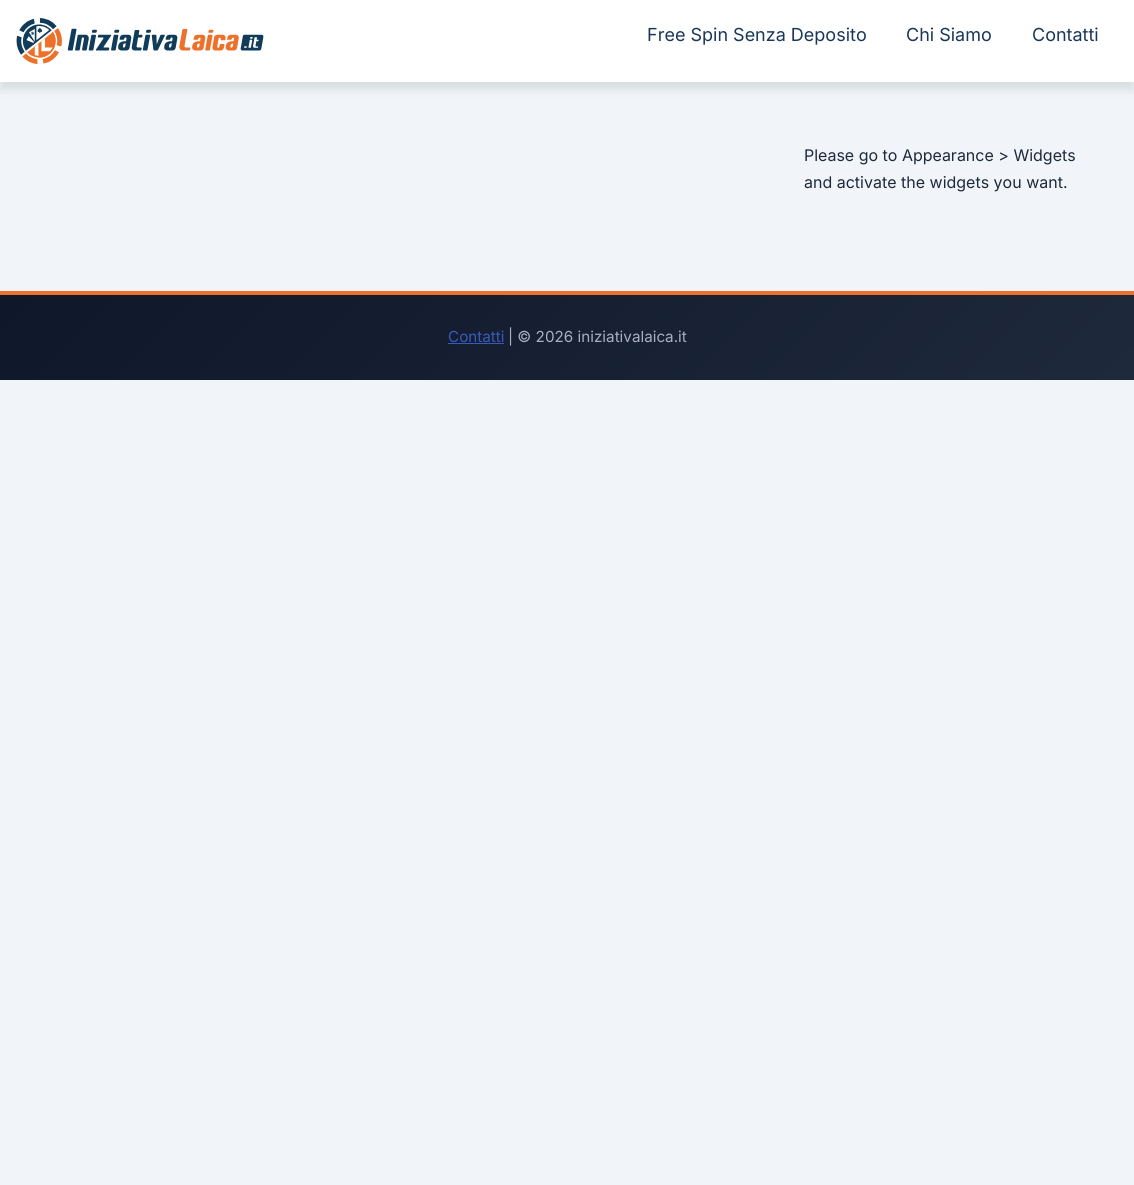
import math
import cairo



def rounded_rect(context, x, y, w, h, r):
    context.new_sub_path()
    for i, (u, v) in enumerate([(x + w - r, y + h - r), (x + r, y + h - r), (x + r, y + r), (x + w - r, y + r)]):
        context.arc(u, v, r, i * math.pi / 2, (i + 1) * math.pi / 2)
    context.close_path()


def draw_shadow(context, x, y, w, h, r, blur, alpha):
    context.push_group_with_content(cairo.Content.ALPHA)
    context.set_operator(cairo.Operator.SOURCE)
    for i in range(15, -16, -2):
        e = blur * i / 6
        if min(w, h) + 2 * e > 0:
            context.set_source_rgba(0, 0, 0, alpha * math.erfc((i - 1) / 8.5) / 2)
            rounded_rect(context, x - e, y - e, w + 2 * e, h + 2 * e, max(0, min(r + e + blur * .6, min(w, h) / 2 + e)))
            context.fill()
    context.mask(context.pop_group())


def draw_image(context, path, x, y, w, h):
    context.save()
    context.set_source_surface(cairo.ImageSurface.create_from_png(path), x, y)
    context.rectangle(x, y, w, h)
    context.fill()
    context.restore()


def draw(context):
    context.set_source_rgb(241 / 255, 245 / 255, 249 / 255)
    context.paint()
    context.set_source_rgb(0, 0, 0)
    draw_shadow(context, 0, 8, 1134, 82, 0, 4.5, 0.1)
    context.set_source_rgb(1, 1, 1)
    context.rectangle(0, 0, 1134, 82)
    context.fill()
    draw_image(context, "images/1.png", 16, 18, 248, 46)
    gradient = cairo.LinearGradient(261, 30, 873, 641)
    gradient.add_color_stop_rgba(0, 15 / 255, 23 / 255, 42 / 255, 1)
    gradient.add_color_stop_rgba(1, 30 / 255, 41 / 255, 59 / 255, 1)
    context.set_source(gradient)
    context.rectangle(0, 295, 1134, 85)
    context.fill()
    context.set_source_rgb(237 / 255, 113 / 255, 42 / 255)
    context.rectangle(0, 291, 1134, 4)
    context.fill()
    context.set_source_rgb(56 / 255, 90 / 255, 190 / 255)
    context.rectangle(448, 343, 56, 1)
    context.fill()
    context.select_font_face("Inter")
    context.set_font_size(18)
    context.set_source_rgb(25 / 255, 55 / 255, 90 / 255)
    context.move_to(647, 41)
    context.show_text("Free Spin Senza Deposito")
    context.move_to(906, 41)
    context.show_text("Chi Siamo")
    context.move_to(1032, 41)
    context.show_text("Contatti")
    context.set_font_size(16)
    context.set_source_rgb(30 / 255, 41 / 255, 59 / 255)
    context.move_to(804, 161)
    context.show_text("Please go to Appearance > Widgets")
    context.move_to(804, 188)
    context.show_text("and activate the widgets you want.")
    context.set_font_size(15.25)
    context.set_source_rgb(56 / 255, 90 / 255, 190 / 255)
    context.move_to(448, 342)
    context.show_text("Contatti")
    context.set_source_rgb(167 / 255, 177 / 255, 190 / 255)
    context.move_to(508, 342)
    context.show_text("| © 2026 iniziativalaica.it")


surface = cairo.ImageSurface(cairo.Format.RGB24, 1134, 1185)
context = cairo.Context(surface)
options = cairo.FontOptions()
options.set_hint_metrics(cairo.HintMetrics.OFF)
options.set_hint_style(cairo.HintStyle.NONE)
context.set_font_options(options)
context.set_miter_limit(4)
draw(context)
surface.write_to_png("out.png")
